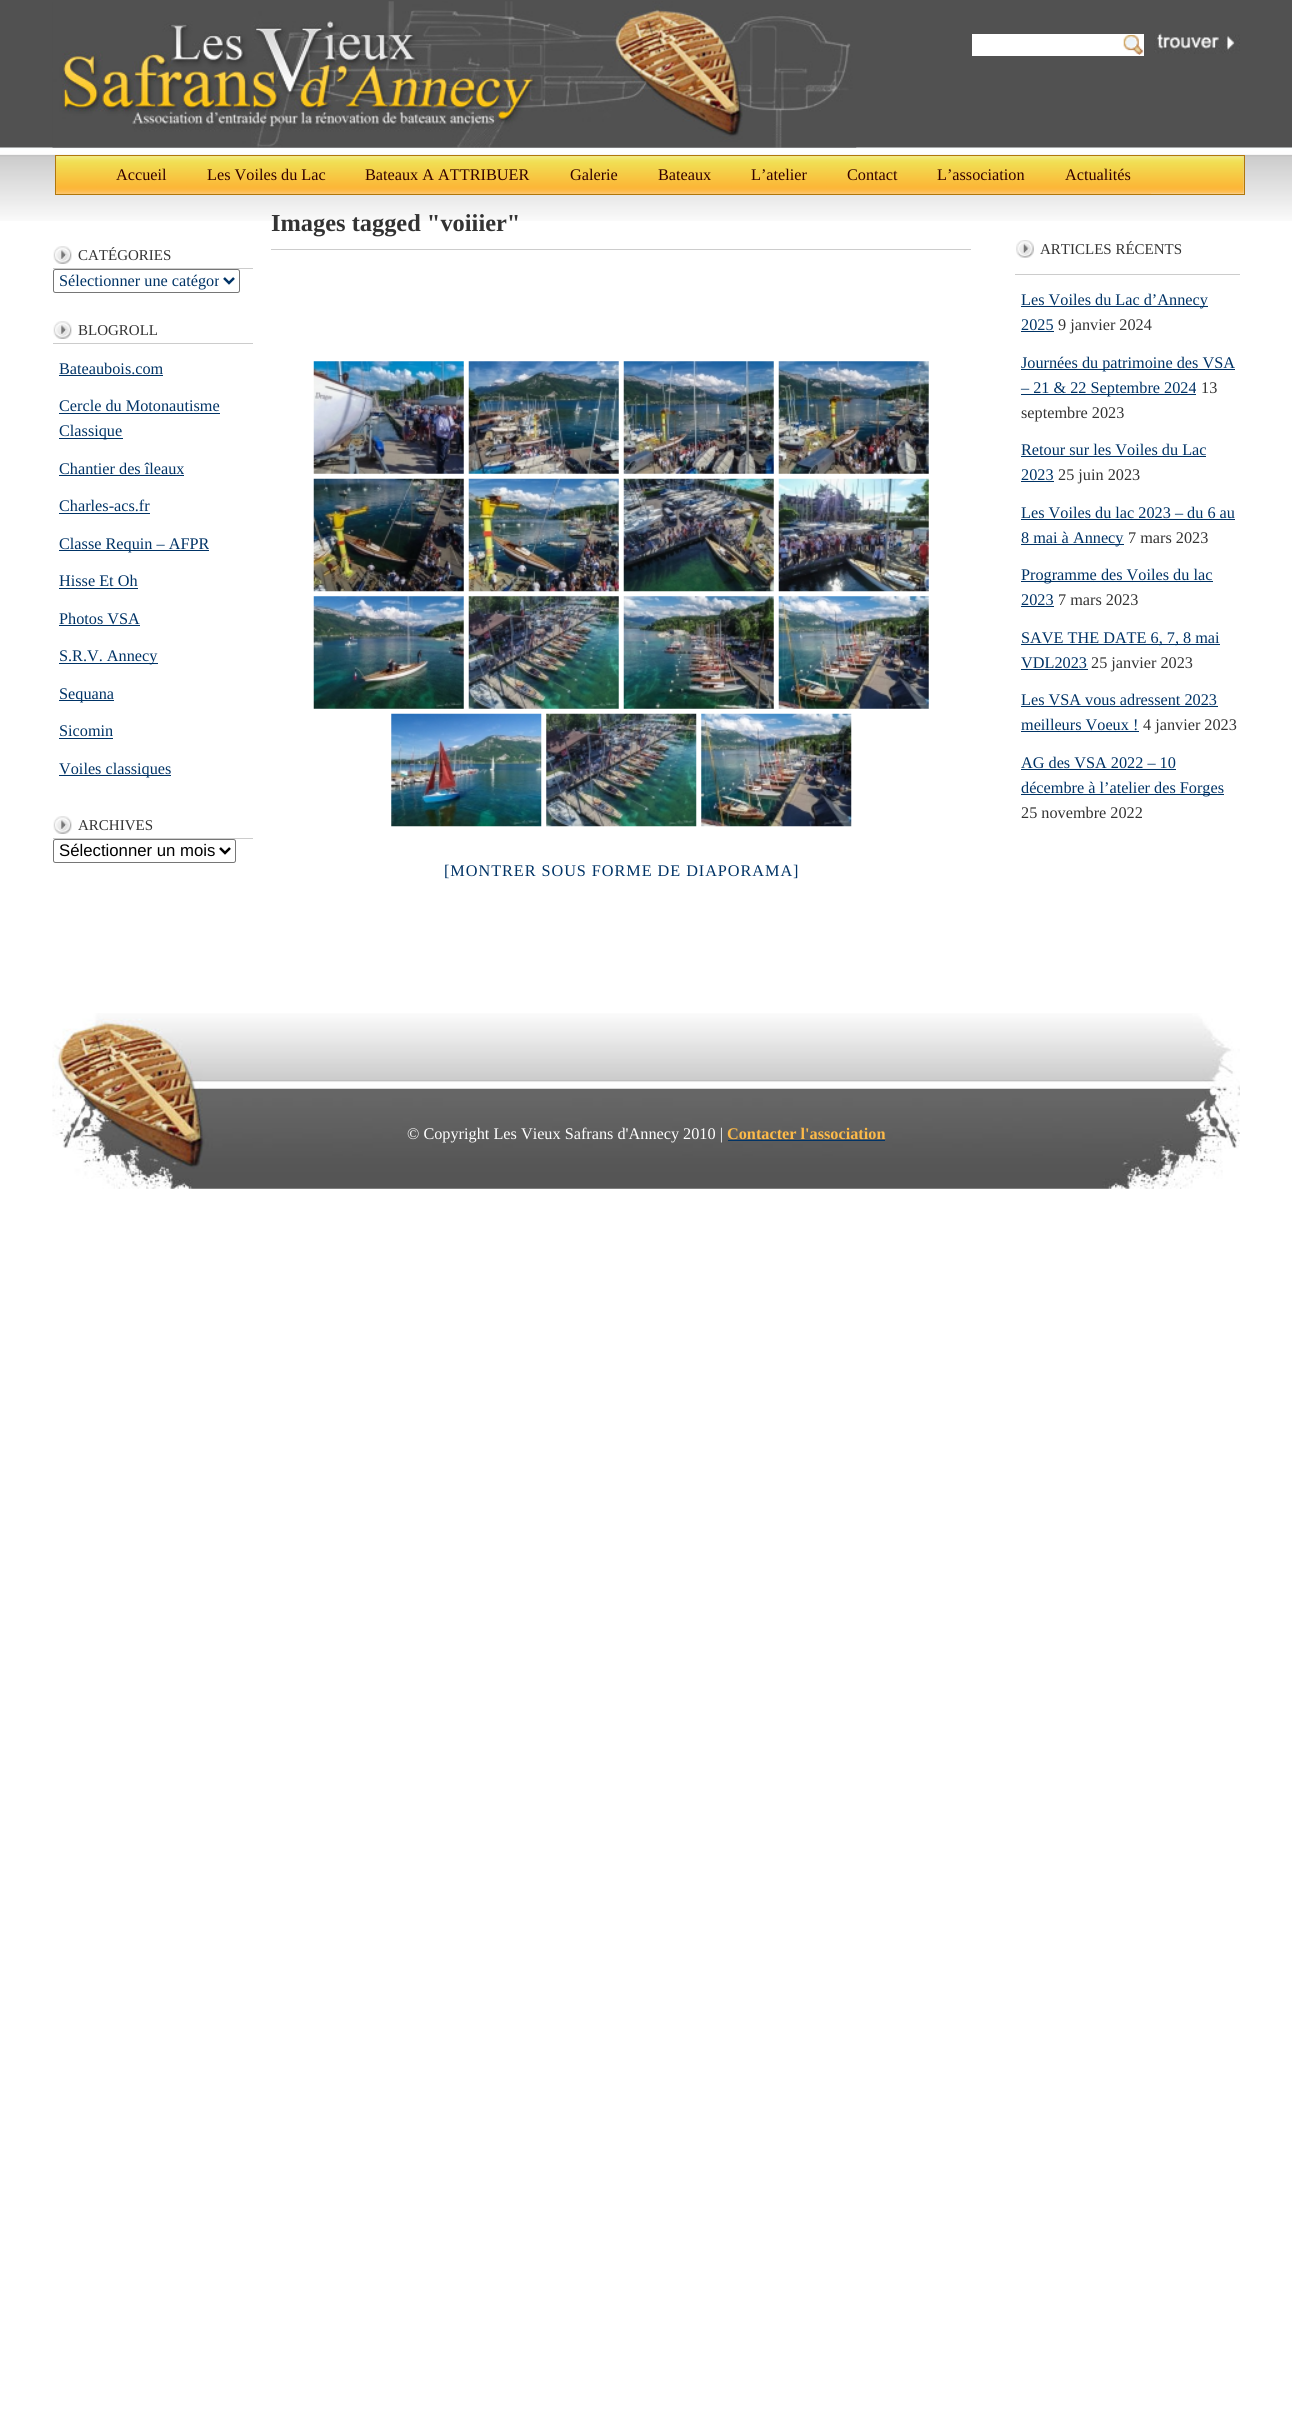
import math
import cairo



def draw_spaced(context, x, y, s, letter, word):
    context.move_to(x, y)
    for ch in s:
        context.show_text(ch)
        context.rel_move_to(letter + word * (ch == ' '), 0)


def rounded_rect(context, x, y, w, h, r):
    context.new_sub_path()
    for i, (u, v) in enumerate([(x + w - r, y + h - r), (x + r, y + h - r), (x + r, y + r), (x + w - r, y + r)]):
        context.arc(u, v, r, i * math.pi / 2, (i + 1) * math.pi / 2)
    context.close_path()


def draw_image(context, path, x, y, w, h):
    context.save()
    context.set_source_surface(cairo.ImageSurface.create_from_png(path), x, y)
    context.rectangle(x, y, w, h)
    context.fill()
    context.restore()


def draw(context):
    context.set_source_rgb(1, 1, 1)
    context.paint()
    draw_image(context, "images/1.png", 0, 0, 1292, 221)
    draw_image(context, "images/2.png", 52, 1, 805, 147)
    context.set_source_rgb(1, 1, 1)
    context.rectangle(972, 34, 172, 22)
    context.fill()
    draw_image(context, "images/3.png", 1123, 35, 21, 20)
    draw_image(context, "images/4.png", 1154, 33, 86, 21)
    context.rectangle(55.5, 155.5, 1189, 39)
    context.set_source_rgb(177 / 255, 119 / 255, 11 / 255)
    context.set_line_width(1)
    context.stroke()
    draw_image(context, "images/5.png", 56, 156, 1188, 38)
    draw_image(context, "images/6.png", 56, 156, 41, 38)
    draw_image(context, "images/7.png", 96, 156, 91, 38)
    draw_image(context, "images/8.png", 186, 156, 159, 38)
    draw_image(context, "images/9.png", 345, 156, 205, 38)
    draw_image(context, "images/10.png", 550, 156, 88, 38)
    draw_image(context, "images/11.png", 637, 156, 95, 38)
    draw_image(context, "images/12.png", 731, 156, 96, 38)
    draw_image(context, "images/13.png", 826, 156, 92, 38)
    draw_image(context, "images/14.png", 917, 156, 128, 38)
    draw_image(context, "images/15.png", 1045, 156, 107, 38)
    draw_image(context, "images/16.png", 53, 246, 19, 18)
    context.set_source_rgb(204 / 255, 204 / 255, 204 / 255)
    context.rectangle(53, 268, 200, 1)
    context.fill()
    rounded_rect(context, 53.5, 269.5, 186, 23, 2)
    context.set_source_rgb(118 / 255, 118 / 255, 118 / 255)
    context.stroke()
    context.new_path()
    context.move_to(224, 278)
    context.line_to(229, 283)
    context.line_to(234, 278)
    context.set_source_rgb(0, 51 / 255, 102 / 255)
    context.set_line_width(2.5)
    context.stroke()
    draw_image(context, "images/16.png", 53, 321, 19, 18)
    context.set_source_rgb(204 / 255, 204 / 255, 204 / 255)
    context.rectangle(53, 343, 200, 1)
    context.fill()
    context.set_source_rgb(0, 51 / 255, 102 / 255)
    context.rectangle(59, 375, 104, 1)
    context.fill()
    context.rectangle(59, 413, 161, 1)
    context.fill()
    context.rectangle(59, 438, 64, 1)
    context.fill()
    context.rectangle(59, 475, 125, 1)
    context.fill()
    context.rectangle(59, 513, 91, 1)
    context.fill()
    context.rectangle(59, 550, 150, 1)
    context.fill()
    context.rectangle(59, 588, 79, 1)
    context.fill()
    context.rectangle(59, 625, 81, 1)
    context.fill()
    context.rectangle(59, 663, 99, 1)
    context.fill()
    context.rectangle(59, 700, 55, 1)
    context.fill()
    context.rectangle(59, 738, 54, 1)
    context.fill()
    context.rectangle(59, 775, 112, 1)
    context.fill()
    draw_image(context, "images/16.png", 53, 816, 19, 18)
    context.set_source_rgb(204 / 255, 204 / 255, 204 / 255)
    context.rectangle(53, 838, 200, 1)
    context.fill()
    rounded_rect(context, 53.5, 839.5, 182, 23, 2)
    context.set_source_rgb(118 / 255, 118 / 255, 118 / 255)
    context.set_line_width(1)
    context.stroke()
    context.new_path()
    context.move_to(220, 848)
    context.line_to(225, 853)
    context.line_to(230, 848)
    context.set_source_rgb(0, 0, 0)
    context.set_line_width(2.5)
    context.stroke()
    context.set_source_rgb(204 / 255, 204 / 255, 204 / 255)
    context.rectangle(271, 249, 700, 1)
    context.fill()
    draw_image(context, "images/17.png", 313, 361, 151, 113)
    draw_image(context, "images/18.png", 468, 361, 151, 113)
    draw_image(context, "images/19.png", 623, 361, 151, 113)
    draw_image(context, "images/20.png", 778, 361, 151, 113)
    draw_image(context, "images/21.png", 313, 478, 151, 114)
    draw_image(context, "images/22.png", 468, 478, 151, 114)
    draw_image(context, "images/23.png", 623, 478, 151, 114)
    draw_image(context, "images/24.png", 778, 478, 151, 114)
    draw_image(context, "images/25.png", 313, 596, 151, 113)
    draw_image(context, "images/26.png", 468, 596, 151, 113)
    draw_image(context, "images/27.png", 623, 596, 151, 113)
    draw_image(context, "images/28.png", 778, 596, 151, 113)
    draw_image(context, "images/29.png", 391, 713, 151, 114)
    draw_image(context, "images/30.png", 546, 713, 151, 114)
    draw_image(context, "images/31.png", 701, 713, 151, 114)
    draw_image(context, "images/32.png", 1016, 240, 18, 18)
    context.rectangle(1015, 274, 225, 1)
    context.fill()
    context.set_source_rgb(0, 51 / 255, 102 / 255)
    context.rectangle(1021, 306, 187, 1)
    context.fill()
    context.rectangle(1021, 331, 33, 1)
    context.fill()
    context.rectangle(1021, 369, 214, 1)
    context.fill()
    context.rectangle(1021, 394, 175, 1)
    context.fill()
    context.rectangle(1021, 456, 185, 1)
    context.fill()
    context.rectangle(1021, 481, 33, 1)
    context.fill()
    context.rectangle(1021, 519, 214, 1)
    context.fill()
    context.rectangle(1021, 544, 103, 1)
    context.fill()
    context.rectangle(1021, 581, 192, 1)
    context.fill()
    context.rectangle(1021, 606, 33, 1)
    context.fill()
    context.rectangle(1021, 644, 199, 1)
    context.fill()
    context.rectangle(1021, 669, 67, 1)
    context.fill()
    context.rectangle(1021, 706, 197, 1)
    context.fill()
    context.rectangle(1021, 731, 118, 1)
    context.fill()
    context.rectangle(1021, 769, 155, 1)
    context.fill()
    context.rectangle(1021, 794, 203, 1)
    context.fill()
    draw_image(context, "images/33.png", 52, 1013, 1188, 176)
    context.rectangle(728, 1140, 157, 1)
    context.fill()
    context.select_font_face("Liberation Serif")
    context.set_font_size(16.25)
    context.set_source_rgb(51 / 255, 0, 0)
    context.move_to(116, 180)
    context.show_text("Accueil")
    context.move_to(207, 180)
    context.show_text("Les Voiles du Lac")
    context.move_to(365, 180)
    context.show_text("Bateaux A ATTRIBUER")
    context.move_to(570, 180)
    context.show_text("Galerie")
    context.move_to(658, 180)
    context.show_text("Bateaux")
    context.move_to(751, 180)
    context.show_text("L’atelier")
    context.move_to(847, 180)
    context.show_text("Contact")
    context.move_to(937, 180)
    context.show_text("L’association")
    context.move_to(1065, 180)
    context.show_text("Actualités")
    context.set_font_size(15)
    context.set_source_rgb(51 / 255, 51 / 255, 51 / 255)
    context.move_to(78, 260)
    context.show_text("CATÉGORIES")
    context.save()
    context.rectangle(59, 270, 160, 21)
    context.clip()
    context.set_font_size(16.25)
    context.set_source_rgb(0, 51 / 255, 102 / 255)
    context.move_to(59, 286)
    context.show_text("Sélectionner une catégor")
    context.restore()
    context.move_to(78, 335)
    context.show_text("BLOGROLL")
    context.set_font_size(16.25)
    context.set_source_rgb(0, 51 / 255, 102 / 255)
    context.move_to(59, 374)
    context.show_text("Bateaubois.com")
    context.move_to(59, 411)
    context.show_text("Cercle du Motonautisme")
    context.move_to(59, 436)
    context.show_text("Classique")
    context.move_to(59, 474)
    context.show_text("Chantier des îleaux")
    context.move_to(59, 511)
    context.show_text("Charles-acs.fr")
    context.move_to(59, 549)
    context.show_text("Classe Requin – AFPR")
    context.move_to(59, 586)
    context.show_text("Hisse Et Oh")
    context.move_to(59, 624)
    context.show_text("Photos VSA")
    context.move_to(59, 661)
    context.show_text("S.R.V. Annecy")
    context.move_to(59, 699)
    context.show_text("Sequana")
    context.move_to(59, 736)
    context.show_text("Sicomin")
    context.move_to(59, 774)
    context.show_text("Voiles classiques")
    context.set_font_size(15)
    context.set_source_rgb(51 / 255, 51 / 255, 51 / 255)
    context.move_to(78, 830)
    context.show_text("ARCHIVES")
    context.select_font_face("Liberation Sans")
    context.set_font_size(16.75)
    context.set_source_rgb(0, 0, 0)
    context.move_to(59, 856)
    context.show_text("Sélectionner un mois")
    context.select_font_face("Liberation Serif", cairo.FontSlant.NORMAL, cairo.FontWeight.BOLD)
    context.set_font_size(24.4)
    context.set_source_rgb(51 / 255, 51 / 255, 51 / 255)
    context.move_to(271, 231)
    context.show_text("Images tagged \"voiiier\"")
    context.select_font_face("Liberation Serif")
    context.set_font_size(16.25)
    context.set_source_rgb(0, 51 / 255, 102 / 255)
    draw_spaced(context, 444, 876, "[MONTRER SOUS FORME DE DIAPORAMA]", 0.95, 0)
    context.set_font_size(15)
    context.set_source_rgb(51 / 255, 51 / 255, 51 / 255)
    context.move_to(1040, 254)
    context.show_text("ARTICLES RÉCENTS")
    context.set_font_size(16.25)
    context.set_source_rgb(0, 51 / 255, 102 / 255)
    context.move_to(1021, 305)
    context.show_text("Les Voiles du Lac d’Annecy")
    context.move_to(1021, 330)
    context.show_text("2025")
    context.set_source_rgb(51 / 255, 51 / 255, 51 / 255)
    context.move_to(1058, 330)
    context.show_text("9 janvier 2024")
    context.set_source_rgb(0, 51 / 255, 102 / 255)
    context.move_to(1021, 368)
    context.show_text("Journées du patrimoine des VSA")
    context.move_to(1021, 393)
    context.show_text("– 21 & 22 Septembre 2024")
    context.set_source_rgb(51 / 255, 51 / 255, 51 / 255)
    context.move_to(1201, 393)
    context.show_text("13")
    context.move_to(1021, 418)
    context.show_text("septembre 2023")
    context.set_source_rgb(0, 51 / 255, 102 / 255)
    context.move_to(1021, 455)
    context.show_text("Retour sur les Voiles du Lac")
    context.move_to(1021, 480)
    context.show_text("2023")
    context.set_source_rgb(51 / 255, 51 / 255, 51 / 255)
    context.move_to(1058, 480)
    context.show_text("25 juin 2023")
    context.set_source_rgb(0, 51 / 255, 102 / 255)
    context.move_to(1021, 518)
    context.show_text("Les Voiles du lac 2023 – du 6 au")
    context.move_to(1021, 543)
    context.show_text("8 mai à Annecy")
    context.set_source_rgb(51 / 255, 51 / 255, 51 / 255)
    context.move_to(1128, 543)
    context.show_text("7 mars 2023")
    context.set_source_rgb(0, 51 / 255, 102 / 255)
    context.move_to(1021, 580)
    context.show_text("Programme des Voiles du lac")
    context.move_to(1021, 605)
    context.show_text("2023")
    context.set_source_rgb(51 / 255, 51 / 255, 51 / 255)
    context.move_to(1058, 605)
    context.show_text("7 mars 2023")
    context.set_source_rgb(0, 51 / 255, 102 / 255)
    context.move_to(1021, 643)
    context.show_text("SAVE THE DATE 6, 7, 8 mai")
    context.move_to(1021, 668)
    context.show_text("VDL2023")
    context.set_source_rgb(51 / 255, 51 / 255, 51 / 255)
    context.move_to(1091, 668)
    context.show_text("25 janvier 2023")
    context.set_source_rgb(0, 51 / 255, 102 / 255)
    context.move_to(1021, 705)
    context.show_text("Les VSA vous adressent 2023")
    context.move_to(1021, 730)
    context.show_text("meilleurs Voeux !")
    context.set_source_rgb(51 / 255, 51 / 255, 51 / 255)
    context.move_to(1143, 730)
    context.show_text("4 janvier 2023")
    context.set_source_rgb(0, 51 / 255, 102 / 255)
    context.move_to(1021, 768)
    context.show_text("AG des VSA 2022 – 10")
    context.move_to(1021, 793)
    context.show_text("décembre à l’atelier des Forges")
    context.set_source_rgb(51 / 255, 51 / 255, 51 / 255)
    context.move_to(1021, 818)
    context.show_text("25 novembre 2022")
    context.set_source_rgb(1, 1, 1)
    context.move_to(407, 1139)
    context.show_text("© Copyright Les Vieux Safrans d'Annecy 2010 |")
    context.select_font_face("Liberation Serif", cairo.FontSlant.NORMAL, cairo.FontWeight.BOLD)
    context.set_source_rgb(253 / 255, 186 / 255, 72 / 255)
    context.move_to(727, 1139)
    context.show_text("Contacter l'association")


surface = cairo.ImageSurface(cairo.Format.RGB24, 1292, 2420)
context = cairo.Context(surface)
options = cairo.FontOptions()
options.set_hint_metrics(cairo.HintMetrics.OFF)
options.set_hint_style(cairo.HintStyle.NONE)
context.set_font_options(options)
context.set_miter_limit(4)
draw(context)
surface.write_to_png("out.png")
